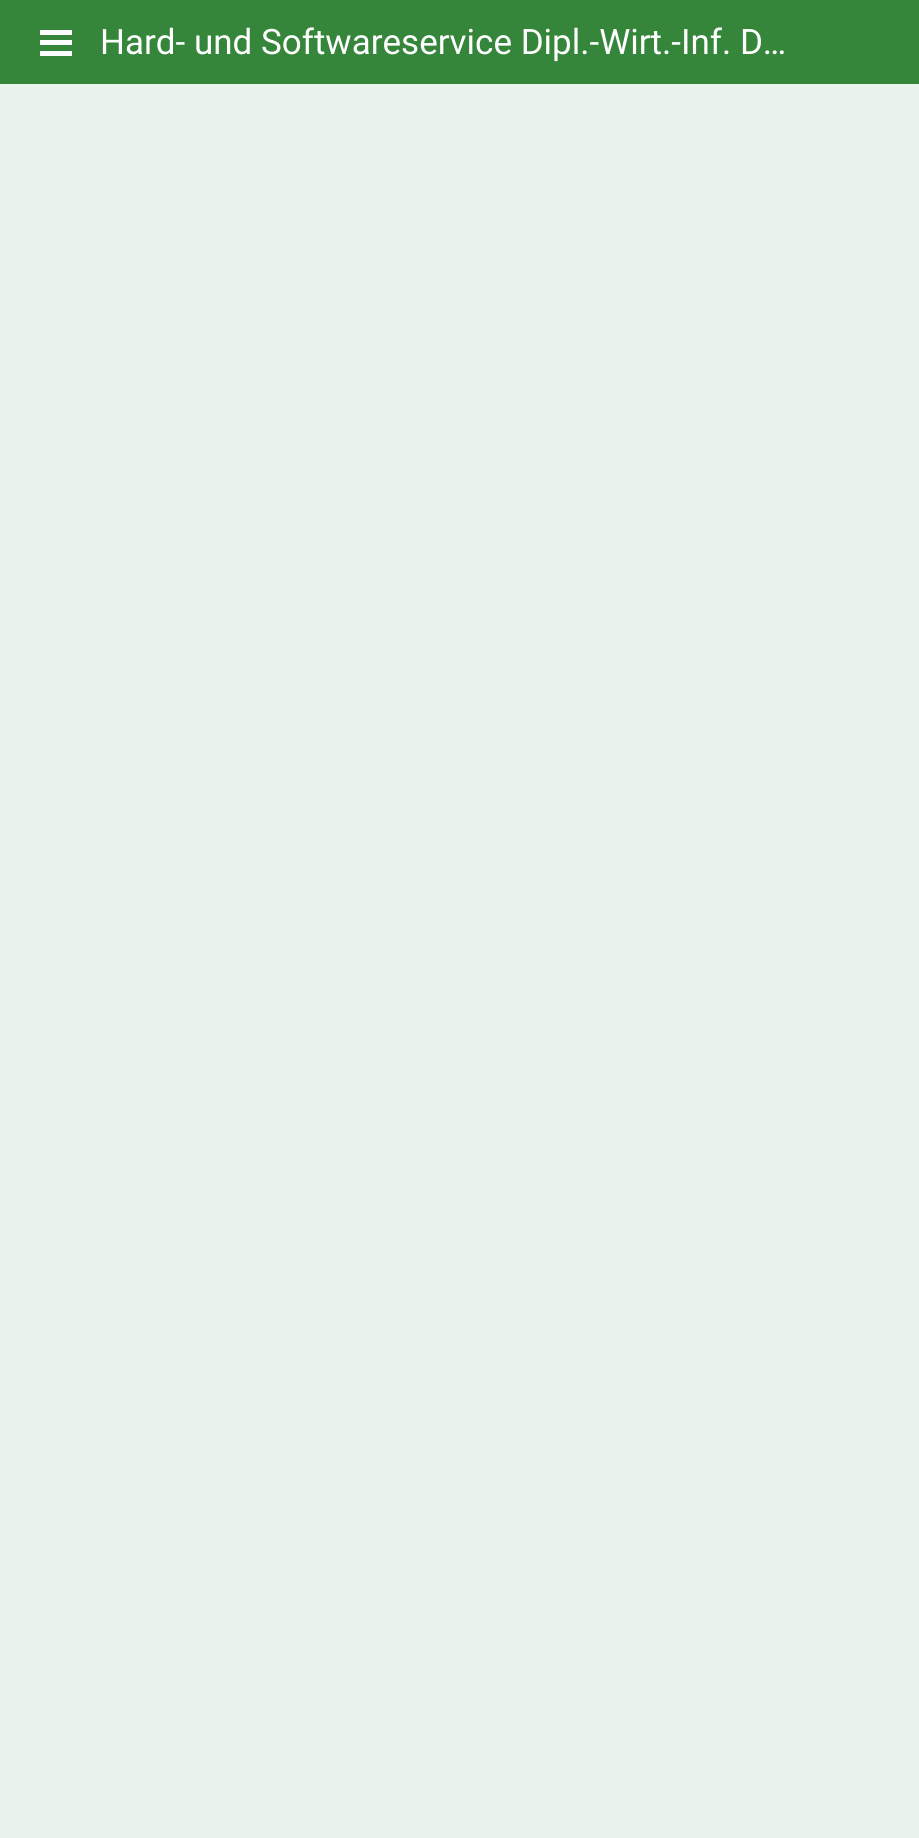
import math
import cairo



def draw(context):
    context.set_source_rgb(235 / 255, 244 / 255, 236 / 255)
    context.paint()
    context.set_source_rgb(53 / 255, 134 / 255, 58 / 255)
    context.rectangle(0, 0, 919, 84)
    context.fill()
    context.set_source_rgb(1, 1, 1)
    context.rectangle(40, 30, 32, 5)
    context.fill()
    context.rectangle(40, 40, 32, 5)
    context.fill()
    context.rectangle(40, 51, 32, 5)
    context.fill()
    context.select_font_face("Roboto")
    context.set_font_size(35)
    context.move_to(100, 54)
    context.show_text("Hard- und Softwareservice Dipl.-Wirt.-Inf. D…")


surface = cairo.ImageSurface(cairo.Format.RGB24, 919, 1838)
context = cairo.Context(surface)
options = cairo.FontOptions()
options.set_hint_metrics(cairo.HintMetrics.OFF)
options.set_hint_style(cairo.HintStyle.NONE)
context.set_font_options(options)
context.set_miter_limit(4)
draw(context)
surface.write_to_png("out.png")
